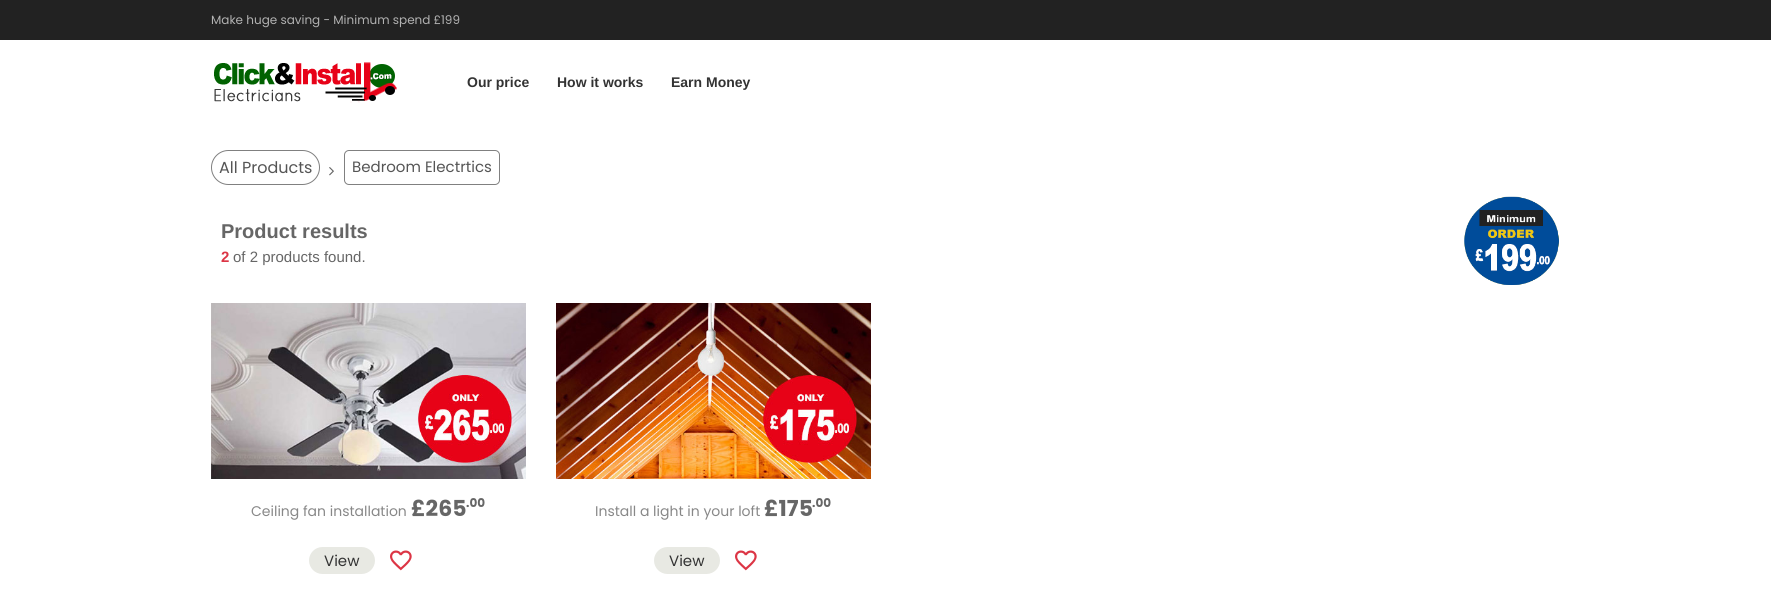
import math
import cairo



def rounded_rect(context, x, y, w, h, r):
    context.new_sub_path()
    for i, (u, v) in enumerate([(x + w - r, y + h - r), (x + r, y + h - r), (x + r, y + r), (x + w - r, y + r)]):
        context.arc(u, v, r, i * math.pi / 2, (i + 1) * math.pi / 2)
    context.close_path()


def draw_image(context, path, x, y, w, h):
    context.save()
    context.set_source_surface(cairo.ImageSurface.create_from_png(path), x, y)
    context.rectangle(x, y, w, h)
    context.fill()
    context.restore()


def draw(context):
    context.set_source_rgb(1, 1, 1)
    context.paint()
    context.set_source_rgb(34 / 255, 34 / 255, 34 / 255)
    context.rectangle(0, 0, 1771, 40)
    context.fill()
    draw_image(context, "images/1.png", 214, 62, 183, 41)
    rounded_rect(context, 211.5, 150.5, 108, 34, 17)
    context.set_source_rgb(128 / 255, 128 / 255, 128 / 255)
    context.set_line_width(1)
    context.stroke()
    draw_image(context, "images/2.png", 329, 167, 5, 9)
    rounded_rect(context, 344.5, 150.5, 155, 34, 4.5)
    context.stroke()
    draw_image(context, "images/3.png", 1464, 196, 95, 89)
    draw_image(context, "images/4.png", 211, 303, 315, 176)
    context.set_source_rgb(232 / 255, 233 / 255, 227 / 255)
    rounded_rect(context, 309, 547, 66, 27, 13.5)
    context.fill()
    draw_image(context, "images/5.png", 390, 550, 22, 21)
    draw_image(context, "images/6.png", 556, 303, 315, 176)
    rounded_rect(context, 654, 547, 66, 27, 13.5)
    context.fill()
    draw_image(context, "images/5.png", 735, 550, 22, 21)
    context.select_font_face("Poppins")
    context.set_font_size(12)
    context.set_source_rgb(178 / 255, 178 / 255, 178 / 255)
    context.move_to(211, 24)
    context.show_text("Make huge saving - Minimum spend £199")
    context.select_font_face("Liberation Sans", cairo.FontSlant.NORMAL, cairo.FontWeight.BOLD)
    context.set_font_size(14)
    context.set_source_rgb(51 / 255, 51 / 255, 51 / 255)
    context.move_to(467, 87)
    context.show_text("Our price")
    context.move_to(557, 87)
    context.show_text("How it works")
    context.move_to(671, 87)
    context.show_text("Earn Money")
    context.select_font_face("Poppins")
    context.set_font_size(16)
    context.set_source_rgb(85 / 255, 85 / 255, 85 / 255)
    context.move_to(219, 173)
    context.show_text("All Products")
    context.set_font_size(15)
    context.move_to(352, 172)
    context.show_text("Bedroom Electrtics")
    context.select_font_face("Liberation Sans", cairo.FontSlant.NORMAL, cairo.FontWeight.BOLD)
    context.set_font_size(20)
    context.set_source_rgb(102 / 255, 102 / 255, 102 / 255)
    context.move_to(221, 238)
    context.show_text("Product results")
    context.set_font_size(15)
    context.set_source_rgb(220 / 255, 53 / 255, 69 / 255)
    context.move_to(221, 262)
    context.show_text("2")
    context.select_font_face("Liberation Sans")
    context.set_source_rgb(102 / 255, 102 / 255, 102 / 255)
    context.move_to(233, 262)
    context.show_text("of 2 products found.")
    context.select_font_face("Poppins")
    context.set_font_size(14)
    context.set_source_rgb(136 / 255, 136 / 255, 136 / 255)
    context.move_to(251, 516)
    context.show_text("Ceiling fan installation")
    context.select_font_face("Poppins", cairo.FontSlant.NORMAL, cairo.FontWeight.BOLD)
    context.set_font_size(22)
    context.set_source_rgb(102 / 255, 102 / 255, 102 / 255)
    context.move_to(411, 516)
    context.show_text("£265")
    context.set_font_size(12)
    context.move_to(466, 507)
    context.show_text(".00")
    context.select_font_face("Poppins")
    context.set_font_size(15)
    context.set_source_rgb(51 / 255, 51 / 255, 51 / 255)
    context.move_to(324, 566)
    context.show_text("View")
    context.set_font_size(14)
    context.set_source_rgb(136 / 255, 136 / 255, 136 / 255)
    context.move_to(595, 516)
    context.show_text("Install a light in your loft")
    context.select_font_face("Poppins", cairo.FontSlant.NORMAL, cairo.FontWeight.BOLD)
    context.set_font_size(22)
    context.set_source_rgb(102 / 255, 102 / 255, 102 / 255)
    context.move_to(764, 516)
    context.show_text("£175")
    context.set_font_size(12)
    context.move_to(812, 507)
    context.show_text(".00")
    context.select_font_face("Poppins")
    context.set_font_size(15)
    context.set_source_rgb(51 / 255, 51 / 255, 51 / 255)
    context.move_to(669, 566)
    context.show_text("View")


surface = cairo.ImageSurface(cairo.Format.RGB24, 1771, 591)
context = cairo.Context(surface)
options = cairo.FontOptions()
options.set_hint_metrics(cairo.HintMetrics.OFF)
options.set_hint_style(cairo.HintStyle.NONE)
context.set_font_options(options)
context.set_miter_limit(4)
draw(context)
surface.write_to_png("out.png")
